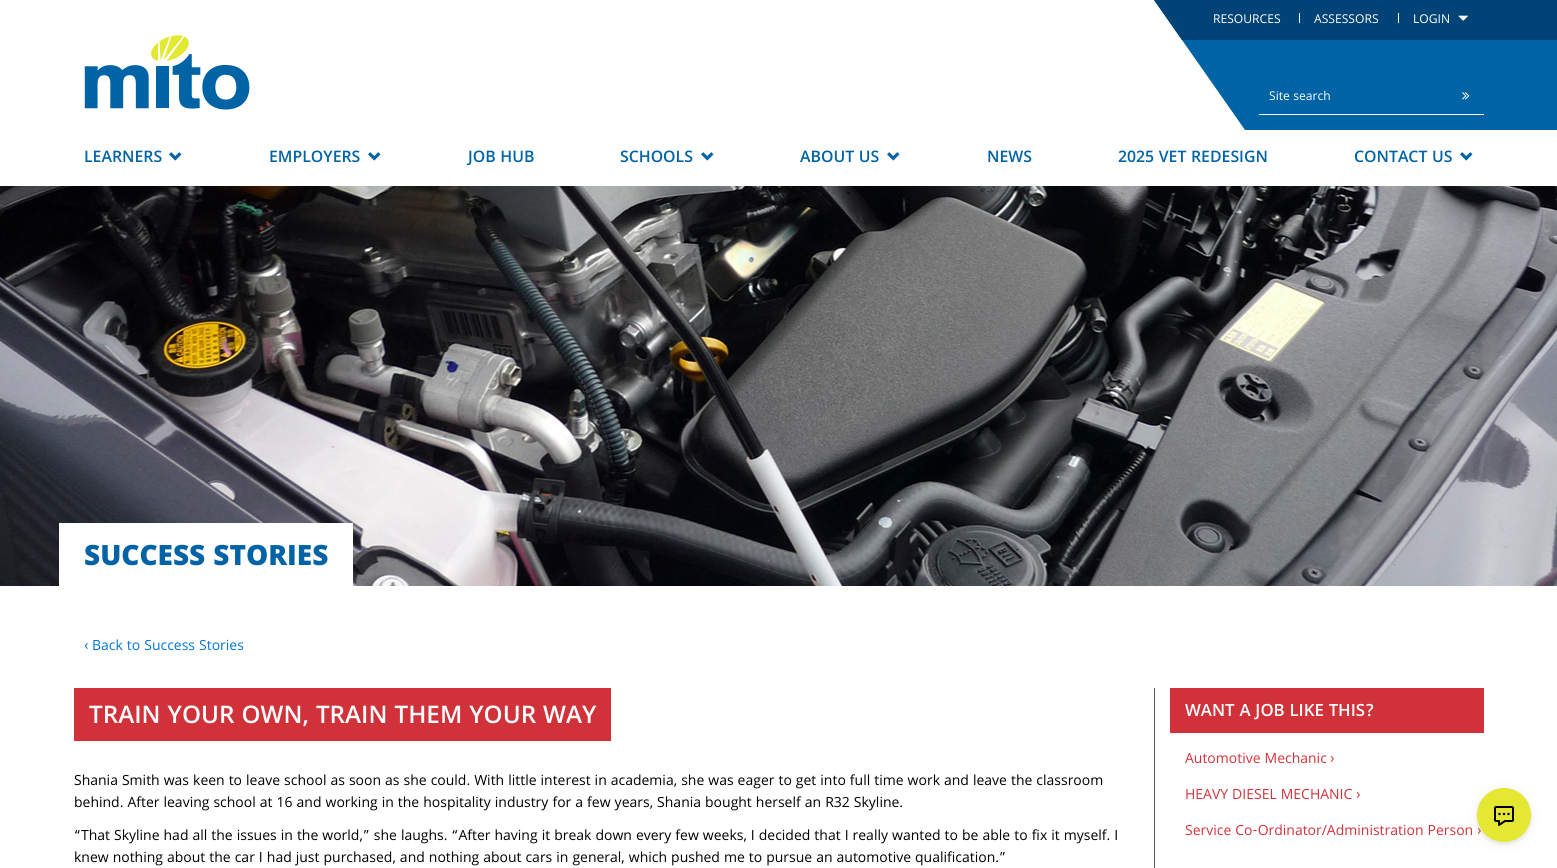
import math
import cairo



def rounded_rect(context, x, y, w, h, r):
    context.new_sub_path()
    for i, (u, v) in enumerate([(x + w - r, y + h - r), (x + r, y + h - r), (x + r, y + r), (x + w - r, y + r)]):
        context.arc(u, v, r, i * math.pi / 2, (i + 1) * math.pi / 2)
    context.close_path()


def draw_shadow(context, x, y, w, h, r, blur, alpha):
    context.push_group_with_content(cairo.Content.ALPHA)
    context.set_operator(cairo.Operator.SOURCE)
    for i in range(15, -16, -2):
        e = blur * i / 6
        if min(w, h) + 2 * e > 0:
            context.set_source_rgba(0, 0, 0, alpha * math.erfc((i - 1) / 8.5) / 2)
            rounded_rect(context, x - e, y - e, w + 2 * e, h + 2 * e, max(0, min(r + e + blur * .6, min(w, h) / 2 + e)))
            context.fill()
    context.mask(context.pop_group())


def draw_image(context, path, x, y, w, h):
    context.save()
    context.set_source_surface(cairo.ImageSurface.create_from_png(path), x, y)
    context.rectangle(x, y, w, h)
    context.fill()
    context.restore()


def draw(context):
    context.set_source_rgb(1, 1, 1)
    context.paint()
    draw_image(context, "images/1.png", 84, 35, 166, 75)
    context.set_source_rgb(0, 99 / 255, 165 / 255)
    context.new_path()
    context.move_to(1154, 0)
    context.line_to(1438, 0)
    context.line_to(1529, 130)
    context.line_to(1245, 130)
    context.close_path()
    context.fill()
    context.set_source_rgb(0, 68 / 255, 119 / 255)
    context.new_path()
    context.move_to(1154, 0)
    context.line_to(1438, 0)
    context.line_to(1466, 40)
    context.line_to(1182, 40)
    context.close_path()
    context.fill()
    context.set_source_rgb(1, 1, 1)
    context.rectangle(1299, 13, 1, 10)
    context.fill()
    context.rectangle(1398, 13, 1, 10)
    context.fill()
    context.set_source_rgb(0, 68 / 255, 119 / 255)
    context.rectangle(1438, 0, 96, 40)
    context.fill()
    draw_image(context, "images/2.png", 1458, 15, 10, 6)
    context.set_source_rgb(0, 99 / 255, 165 / 255)
    context.rectangle(1466, 40, 68, 90)
    context.fill()
    context.set_source_rgb(1, 1, 1)
    context.rectangle(1259, 114, 225, 1)
    context.fill()
    draw_image(context, "images/3.png", 1462, 92, 8, 8)
    draw_image(context, "images/4.png", 169, 152, 13, 9)
    draw_image(context, "images/4.png", 368, 152, 13, 9)
    draw_image(context, "images/4.png", 701, 152, 13, 9)
    draw_image(context, "images/4.png", 887, 152, 13, 9)
    draw_image(context, "images/4.png", 1460, 152, 13, 9)
    context.set_source_rgb(0, 99 / 255, 165 / 255)
    context.rectangle(1534, 40, 23, 90)
    context.fill()
    context.set_source_rgb(0, 68 / 255, 119 / 255)
    context.rectangle(1534, 0, 23, 40)
    context.fill()
    draw_image(context, "images/5.png", 0, 186, 1557, 400)
    context.set_source_rgb(1, 1, 1)
    context.rectangle(59, 523, 294, 63)
    context.fill()
    context.set_source_rgb(209 / 255, 50 / 255, 58 / 255)
    context.rectangle(74, 688, 537, 53)
    context.fill()
    context.set_source_rgb(87 / 255, 88 / 255, 91 / 255)
    context.rectangle(1154, 688, 1, 180)
    context.fill()
    context.set_source_rgb(209 / 255, 50 / 255, 58 / 255)
    context.rectangle(1170, 688, 314, 45)
    context.fill()
    context.set_source_rgb(0, 0, 0)
    draw_shadow(context, 1477, 790, 54, 54, 27, 2, 0.08)
    draw_shadow(context, 1477, 790, 54, 54, 27, 6, 0.06)
    context.select_font_face("Khula")
    context.set_font_size(13)
    context.set_source_rgb(1, 1, 1)
    context.move_to(1213, 23)
    context.show_text("RESOURCES")
    context.move_to(1314, 23)
    context.show_text("ASSESSORS")
    context.move_to(1413, 23)
    context.show_text("LOGIN")
    context.move_to(1269, 100)
    context.show_text("Site search")
    context.select_font_face("Khula SemiBold")
    context.set_font_size(17)
    context.set_source_rgb(0, 99 / 255, 165 / 255)
    context.move_to(84, 162)
    context.show_text("LEARNERS")
    context.move_to(269, 162)
    context.show_text("EMPLOYERS")
    context.move_to(468, 162)
    context.show_text("JOB HUB")
    context.move_to(620, 162)
    context.show_text("SCHOOLS")
    context.move_to(800, 162)
    context.show_text("ABOUT US")
    context.move_to(987, 162)
    context.show_text("NEWS")
    context.move_to(1118, 162)
    context.show_text("2025 VET REDESIGN")
    context.move_to(1354, 162)
    context.show_text("CONTACT US")
    context.select_font_face("Khula ExtraBold")
    context.set_font_size(30)
    context.move_to(84, 565)
    context.show_text("SUCCESS STORIES")
    context.select_font_face("Roboto")
    context.set_font_size(15)
    context.set_source_rgb(2 / 255, 117 / 255, 216 / 255)
    context.move_to(84, 650)
    context.show_text("‹")
    context.select_font_face("Khula")
    context.move_to(92, 650)
    context.show_text("Back to Success Stories")
    context.select_font_face("Khula SemiBold")
    context.set_font_size(26)
    context.set_source_rgb(1, 1, 1)
    context.move_to(89, 723)
    context.show_text("TRAIN YOUR OWN, TRAIN THEM YOUR WAY")
    context.select_font_face("Khula")
    context.set_font_size(15)
    context.set_source_rgb(0, 0, 0)
    context.move_to(74, 785)
    context.show_text("Shania Smith was keen to leave school as soon as she could. With little interest in academia, she was eager to get into full time work and leave the classroom")
    context.move_to(74, 807)
    context.show_text("behind. After leaving school at 16 and working in the hospitality industry for a few years, Shania bought herself an R32 Skyline.")
    context.move_to(74, 840)
    context.show_text("“That Skyline had all the issues in the world,” she laughs. “After having it break down every few weeks, I decided that I really wanted to be able to fix it myself. I")
    context.move_to(74, 862)
    context.show_text("knew nothing about the car I had just purchased, and nothing about cars in general, which pushed me to pursue an automotive qualification.”")
    context.select_font_face("Khula SemiBold")
    context.set_font_size(18)
    context.set_source_rgb(1, 1, 1)
    context.move_to(1185, 716)
    context.show_text("WANT A JOB LIKE THIS?")
    context.select_font_face("Khula")
    context.set_font_size(15)
    context.set_source_rgb(209 / 255, 50 / 255, 58 / 255)
    context.move_to(1185, 763)
    context.show_text("Automotive Mechanic")
    context.select_font_face("Roboto")
    context.move_to(1330, 763)
    context.show_text("›")
    context.select_font_face("Khula")
    context.move_to(1185, 799)
    context.show_text("HEAVY DIESEL MECHANIC")
    context.select_font_face("Roboto")
    context.move_to(1356, 799)
    context.show_text("›")
    context.select_font_face("Khula")
    context.move_to(1185, 835)
    context.show_text("Service Co-Ordinator/Administration Person")
    context.select_font_face("Roboto")
    context.move_to(1477, 835)
    context.show_text("›")
    context.set_source_rgb(228 / 255, 232 / 255, 51 / 255)
    context.new_path()
    context.arc(1504, 815, 27, 0, 2 * math.pi)
    context.fill()
    draw_image(context, "images/6.png", 1494, 806, 20, 20)


surface = cairo.ImageSurface(cairo.Format.RGB24, 1557, 868)
context = cairo.Context(surface)
options = cairo.FontOptions()
options.set_hint_metrics(cairo.HintMetrics.OFF)
options.set_hint_style(cairo.HintStyle.NONE)
context.set_font_options(options)
context.set_miter_limit(4)
draw(context)
surface.write_to_png("out.png")
